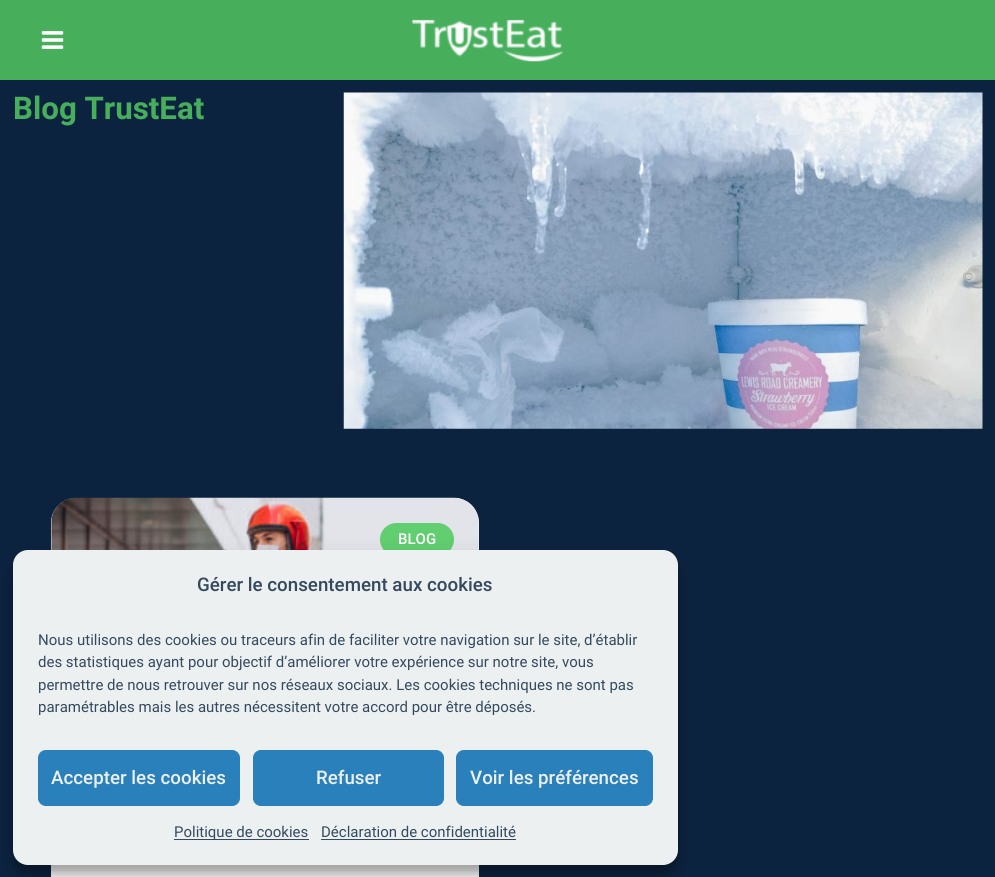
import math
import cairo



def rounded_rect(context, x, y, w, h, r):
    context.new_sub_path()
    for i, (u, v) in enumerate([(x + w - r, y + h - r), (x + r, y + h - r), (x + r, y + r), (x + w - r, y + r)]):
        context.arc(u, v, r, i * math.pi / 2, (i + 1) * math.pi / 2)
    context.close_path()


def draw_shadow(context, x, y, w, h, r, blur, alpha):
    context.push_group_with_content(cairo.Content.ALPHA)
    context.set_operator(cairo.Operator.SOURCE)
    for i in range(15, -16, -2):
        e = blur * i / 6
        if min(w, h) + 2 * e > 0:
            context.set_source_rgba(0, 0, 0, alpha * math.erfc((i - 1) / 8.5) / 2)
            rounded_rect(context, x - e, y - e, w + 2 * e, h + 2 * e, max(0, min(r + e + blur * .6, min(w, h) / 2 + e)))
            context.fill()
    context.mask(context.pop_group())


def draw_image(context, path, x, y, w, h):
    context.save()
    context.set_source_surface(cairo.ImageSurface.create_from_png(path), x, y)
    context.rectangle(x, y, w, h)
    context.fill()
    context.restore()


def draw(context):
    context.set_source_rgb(12 / 255, 35 / 255, 64 / 255)
    context.paint()
    context.set_source_rgb(71 / 255, 175 / 255, 92 / 255)
    context.rectangle(0, 0, 995, 80)
    context.fill()
    draw_image(context, "images/1.png", 41, 31, 23, 18)
    draw_image(context, "images/2.png", 412, 19, 151, 43)
    draw_image(context, "images/3.png", 343, 92, 640, 337)
    context.set_source_rgb(1, 1, 1)
    rounded_rect(context, 51, 498, 428, 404, 25)
    context.fill()
    draw_image(context, "images/4.png", 51, 497, 428, 53)
    context.set_source_rgb(97 / 255, 206 / 255, 112 / 255)
    rounded_rect(context, 380, 523, 74, 33, 16.5)
    context.fill()
    context.set_source_rgb(0, 0, 0)
    draw_shadow(context, 13, 558, 665, 315, 15, 4, 0.23)
    draw_shadow(context, 13, 563, 665, 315, 15, 12.5, 0.19)
    context.set_source_rgb(236 / 255, 240 / 255, 241 / 255)
    rounded_rect(context, 13, 550, 665, 315, 15)
    context.fill()
    context.set_source_rgb(41 / 255, 128 / 255, 186 / 255)
    rounded_rect(context, 38.5, 750.5, 201, 55, 7.5)
    context.fill_preserve()
    context.set_line_width(1)
    context.stroke()
    rounded_rect(context, 253.5, 750.5, 190, 55, 7.5)
    context.fill_preserve()
    context.stroke()
    rounded_rect(context, 456.5, 750.5, 196, 55, 7.5)
    context.fill_preserve()
    context.stroke()
    context.set_source_rgb(52 / 255, 73 / 255, 94 / 255)
    context.rectangle(174, 839, 135, 1)
    context.fill()
    context.rectangle(321, 839, 195, 1)
    context.fill()
    context.select_font_face("Roboto", cairo.FontSlant.NORMAL, cairo.FontWeight.BOLD)
    context.set_font_size(31.25)
    context.set_source_rgb(71 / 255, 175 / 255, 92 / 255)
    context.move_to(13, 119)
    context.show_text("Blog TrustEat")
    context.select_font_face("Roboto Medium")
    context.set_font_size(15)
    context.set_source_rgb(1, 1, 1)
    context.move_to(398, 544)
    context.show_text("BLOG")
    context.set_font_size(18.75)
    context.set_source_rgb(52 / 255, 73 / 255, 94 / 255)
    context.move_to(197, 591)
    context.show_text("Gérer le consentement aux cookies")
    context.select_font_face("Roboto")
    context.set_font_size(15)
    context.move_to(38, 645)
    context.show_text("Nous utilisons des cookies ou traceurs afin de faciliter votre navigation sur le site, d’établir")
    context.move_to(38, 667)
    context.show_text("des statistiques ayant pour objectif d’améliorer votre expérience sur notre site, vous")
    context.move_to(38, 690)
    context.show_text("permettre de nous retrouver sur nos réseaux sociaux. Les cookies techniques ne sont pas")
    context.move_to(38, 712)
    context.show_text("paramétrables mais les autres nécessitent votre accord pour être déposés.")
    context.select_font_face("Roboto Medium")
    context.set_font_size(18.75)
    context.set_source_rgb(236 / 255, 240 / 255, 241 / 255)
    context.move_to(51, 784)
    context.show_text("Accepter les cookies")
    context.move_to(316, 784)
    context.show_text("Refuser")
    context.move_to(470, 784)
    context.show_text("Voir les préférences")
    context.select_font_face("Roboto")
    context.set_font_size(15)
    context.set_source_rgb(52 / 255, 73 / 255, 94 / 255)
    context.move_to(174, 837)
    context.show_text("Politique de cookies")
    context.move_to(321, 837)
    context.show_text("Déclaration de confidentialité")


surface = cairo.ImageSurface(cairo.Format.RGB24, 995, 877)
context = cairo.Context(surface)
options = cairo.FontOptions()
options.set_hint_metrics(cairo.HintMetrics.OFF)
options.set_hint_style(cairo.HintStyle.NONE)
context.set_font_options(options)
context.set_miter_limit(4)
draw(context)
surface.write_to_png("out.png")
